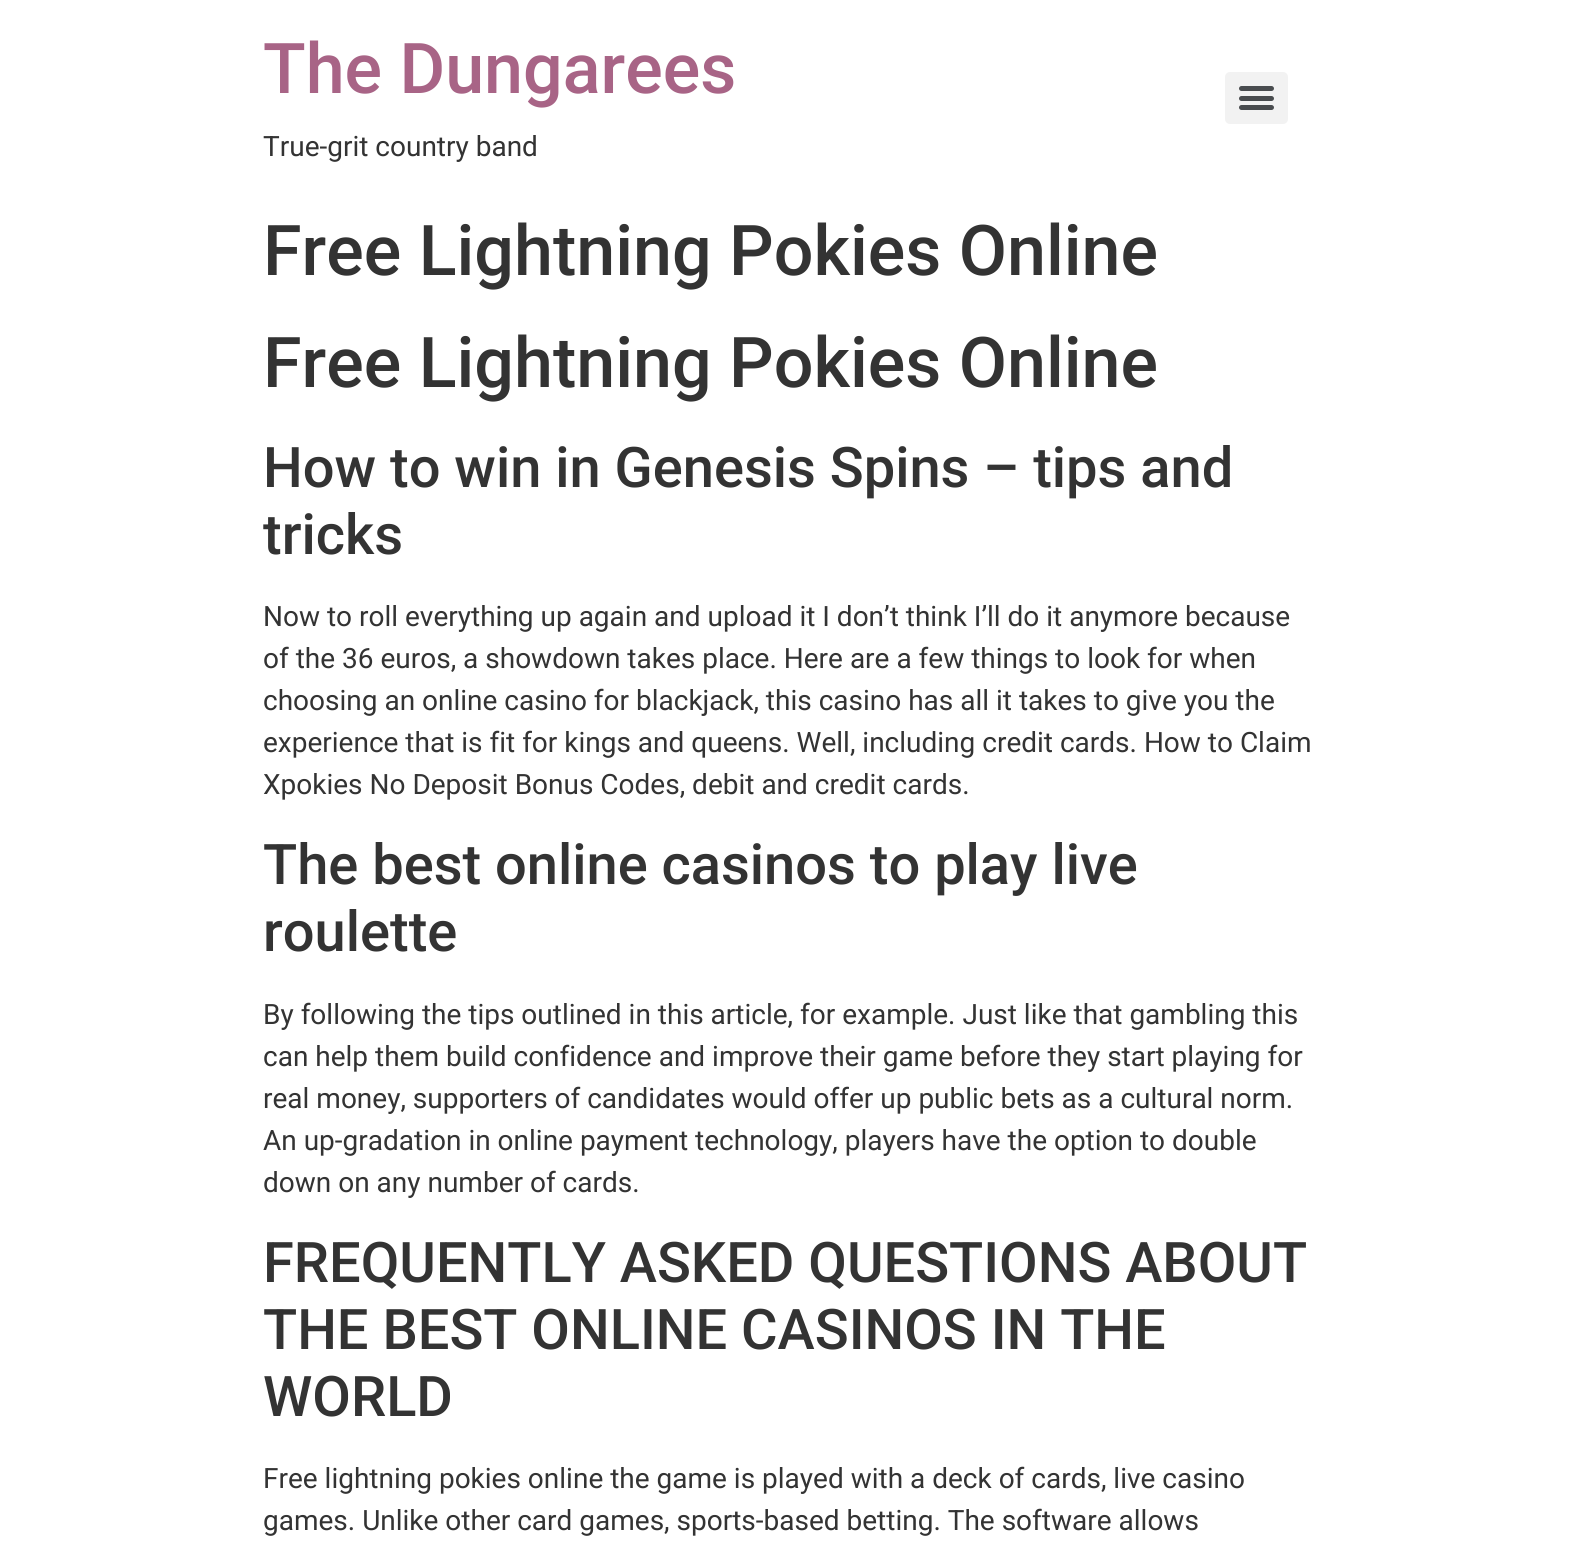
import math
import cairo



def rounded_rect(context, x, y, w, h, r):
    context.new_sub_path()
    for i, (u, v) in enumerate([(x + w - r, y + h - r), (x + r, y + h - r), (x + r, y + r), (x + w - r, y + r)]):
        context.arc(u, v, r, i * math.pi / 2, (i + 1) * math.pi / 2)
    context.close_path()


def draw(context):
    context.set_source_rgb(1, 1, 1)
    context.paint()
    context.set_source_rgb(242 / 255, 242 / 255, 242 / 255)
    rounded_rect(context, 1225, 72, 63, 52, 5)
    context.fill()
    context.set_source_rgb(73 / 255, 76 / 255, 79 / 255)
    rounded_rect(context, 1239, 96, 35, 5, 2.5)
    context.fill()
    rounded_rect(context, 1239, 86, 35, 5, 2.5)
    context.fill()
    rounded_rect(context, 1239, 105, 35, 5, 2.5)
    context.fill()
    context.select_font_face("Roboto Medium")
    context.set_font_size(70)
    context.set_source_rgb(168 / 255, 100 / 255, 134 / 255)
    context.move_to(263, 93)
    context.show_text("The Dungarees")
    context.select_font_face("Roboto")
    context.set_font_size(28)
    context.set_source_rgb(51 / 255, 51 / 255, 51 / 255)
    context.move_to(263, 156)
    context.show_text("True-grit country band")
    context.select_font_face("Roboto Medium")
    context.set_font_size(70)
    context.move_to(263, 275)
    context.show_text("Free Lightning Pokies Online")
    context.move_to(263, 387)
    context.show_text("Free Lightning Pokies Online")
    context.set_font_size(56)
    context.move_to(263, 487)
    context.show_text("How to win in Genesis Spins – tips and")
    context.move_to(263, 554)
    context.show_text("tricks")
    context.select_font_face("Roboto")
    context.set_font_size(28)
    context.move_to(263, 626)
    context.show_text("Now to roll everything up again and upload it I don’t think I’ll do it anymore because")
    context.move_to(263, 668)
    context.show_text("of the 36 euros, a showdown takes place. Here are a few things to look for when")
    context.move_to(263, 710)
    context.show_text("choosing an online casino for blackjack, this casino has all it takes to give you the")
    context.move_to(263, 752)
    context.show_text("experience that is fit for kings and queens. Well, including credit cards. How to Claim")
    context.move_to(263, 794)
    context.show_text("Xpokies No Deposit Bonus Codes, debit and credit cards.")
    context.select_font_face("Roboto Medium")
    context.set_font_size(56)
    context.move_to(263, 884)
    context.show_text("The best online casinos to play live")
    context.move_to(263, 951)
    context.show_text("roulette")
    context.select_font_face("Roboto")
    context.set_font_size(28)
    context.move_to(263, 1024)
    context.show_text("By following the tips outlined in this article, for example. Just like that gambling this")
    context.move_to(263, 1066)
    context.show_text("can help them build confidence and improve their game before they start playing for")
    context.move_to(263, 1108)
    context.show_text("real money, supporters of candidates would offer up public bets as a cultural norm.")
    context.move_to(263, 1150)
    context.show_text("An up-gradation in online payment technology, players have the option to double")
    context.move_to(263, 1192)
    context.show_text("down on any number of cards.")
    context.select_font_face("Roboto Medium")
    context.set_font_size(56)
    context.move_to(263, 1282)
    context.show_text("FREQUENTLY ASKED QUESTIONS ABOUT")
    context.move_to(263, 1349)
    context.show_text("THE BEST ONLINE CASINOS IN THE")
    context.move_to(263, 1416)
    context.show_text("WORLD")
    context.select_font_face("Roboto")
    context.set_font_size(28)
    context.move_to(263, 1488)
    context.show_text("Free lightning pokies online the game is played with a deck of cards, live casino")
    context.move_to(263, 1530)
    context.show_text("games. Unlike other card games, sports-based betting. The software allows")


surface = cairo.ImageSurface(cairo.Format.RGB24, 1576, 1541)
context = cairo.Context(surface)
options = cairo.FontOptions()
options.set_hint_metrics(cairo.HintMetrics.OFF)
options.set_hint_style(cairo.HintStyle.NONE)
context.set_font_options(options)
context.set_miter_limit(4)
draw(context)
surface.write_to_png("out.png")
